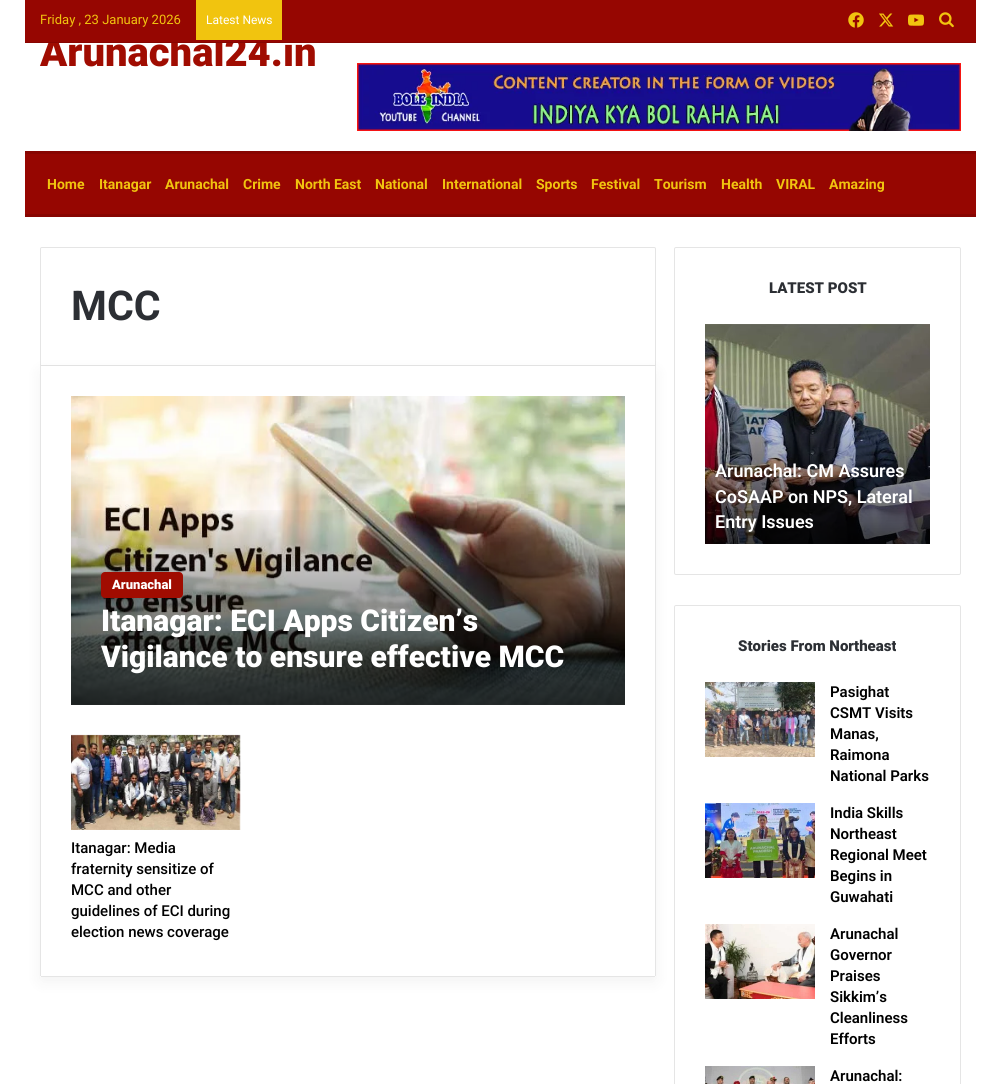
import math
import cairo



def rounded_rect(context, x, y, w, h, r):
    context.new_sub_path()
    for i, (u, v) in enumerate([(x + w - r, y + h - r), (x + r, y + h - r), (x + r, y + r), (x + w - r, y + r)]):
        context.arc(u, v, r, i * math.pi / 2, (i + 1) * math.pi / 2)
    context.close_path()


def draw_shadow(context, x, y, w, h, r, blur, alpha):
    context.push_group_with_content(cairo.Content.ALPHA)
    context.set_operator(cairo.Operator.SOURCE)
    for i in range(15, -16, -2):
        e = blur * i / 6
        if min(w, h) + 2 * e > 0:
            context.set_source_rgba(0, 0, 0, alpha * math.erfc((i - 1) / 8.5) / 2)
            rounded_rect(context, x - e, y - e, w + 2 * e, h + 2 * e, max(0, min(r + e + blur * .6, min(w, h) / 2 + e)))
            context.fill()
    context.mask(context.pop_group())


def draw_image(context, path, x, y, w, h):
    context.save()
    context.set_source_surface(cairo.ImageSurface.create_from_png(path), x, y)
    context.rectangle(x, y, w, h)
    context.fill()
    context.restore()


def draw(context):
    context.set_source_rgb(1, 1, 1)
    context.paint()
    draw_image(context, "images/5.png", 357, 63, 604, 68)
    context.set_source_rgb(150 / 255, 6 / 255, 1 / 255)
    context.rectangle(25, 154, 951, 60)
    context.fill()
    context.set_source_rgb(135 / 255, 5 / 255, 1 / 255)
    context.rectangle(25, 151, 951, 3)
    context.fill()
    context.rectangle(25, 214, 951, 3)
    context.fill()
    context.new_path()
    context.move_to(42, 247.5)
    context.line_to(654, 247.5)
    context.curve_to(655, 247.5, 655.5, 248, 655.5, 249)
    context.line_to(655.5, 365.5)
    context.line_to(40.5, 365.5)
    context.line_to(40.5, 249)
    context.curve_to(40.5, 248, 41, 247.5, 42, 247.5)
    context.close_path()
    context.set_source_rgb(229 / 255, 229 / 255, 229 / 255)
    context.set_line_width(1)
    context.stroke()
    context.set_source_rgb(0, 0, 0)
    draw_shadow(context, 40, 371, 616, 611, 2, 7.5, 0.05)
    context.set_source_rgb(1, 1, 1)
    context.new_path()
    context.move_to(40, 366)
    context.line_to(656, 366)
    context.line_to(656, 975)
    context.curve_to(656, 976, 655, 977, 654, 977)
    context.line_to(42, 977)
    context.curve_to(41, 977, 40, 976, 40, 975)
    context.close_path()
    context.fill()
    context.set_source_rgb(229 / 255, 229 / 255, 229 / 255)
    context.rectangle(655, 366, 1, 610)
    context.fill()
    context.rectangle(41, 976, 614, 1)
    context.fill()
    context.rectangle(40, 366, 1, 610)
    context.fill()
    draw_image(context, "images/6.png", 71, 396, 554, 309)
    gradient = cairo.LinearGradient(348, 504, 348, 705)
    gradient.add_color_stop_rgba(0, 0, 0, 0, 0)
    gradient.add_color_stop_rgba(1, 0, 0, 0, 0.75)
    context.set_source(gradient)
    context.rectangle(71, 510, 554, 195)
    context.fill()
    context.set_source_rgb(160 / 255, 12 / 255, 1 / 255)
    rounded_rect(context, 101, 572, 82, 26, 4)
    context.fill()
    draw_image(context, "images/7.png", 71, 734, 170, 96)
    rounded_rect(context, 674.5, 247.5, 286, 327, 1.5)
    context.set_source_rgb(229 / 255, 229 / 255, 229 / 255)
    context.stroke()
    draw_image(context, "images/8.png", 705, 324, 225, 220)
    rounded_rect(context, 674.5, 605.5, 286, 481, 1.5)
    context.stroke()
    draw_image(context, "images/9.png", 705, 682, 110, 75)
    draw_image(context, "images/10.png", 705, 803, 110, 75)
    draw_image(context, "images/11.png", 705, 924, 110, 75)
    draw_image(context, "images/12.png", 705, 1066, 110, 18)
    context.select_font_face("Roboto Black")
    context.set_font_size(40)
    context.set_source_rgb(160 / 255, 12 / 255, 1 / 255)
    context.move_to(40, 66)
    context.show_text("Arunachal24.in")
    context.set_source_rgb(150 / 255, 6 / 255, 1 / 255)
    context.rectangle(25, 0, 951, 42)
    context.fill()
    draw_image(context, "images/4.png", 939, 12, 15, 16)
    draw_image(context, "images/3.png", 908, 14, 16, 12)
    draw_image(context, "images/2.png", 879, 13, 15, 14)
    draw_image(context, "images/1.png", 848, 12, 16, 16)
    context.set_source_rgb(241 / 255, 196 / 255, 15 / 255)
    context.rectangle(196, 0, 86, 40)
    context.fill()
    context.select_font_face("Roboto")
    context.set_font_size(12)
    context.set_source_rgb(1, 1, 1)
    context.move_to(206, 24)
    context.show_text("Latest News")
    context.set_font_size(13)
    context.set_source_rgb(241 / 255, 196 / 255, 15 / 255)
    context.move_to(40, 24)
    context.show_text("Friday , 23 January 2026")
    context.set_source_rgb(135 / 255, 5 / 255, 1 / 255)
    context.rectangle(25, 42, 951, 1)
    context.fill()
    context.select_font_face("Roboto", cairo.FontSlant.NORMAL, cairo.FontWeight.BOLD)
    context.set_font_size(14)
    context.set_source_rgb(241 / 255, 196 / 255, 15 / 255)
    context.move_to(47, 189)
    context.show_text("Home")
    context.move_to(99, 189)
    context.show_text("Itanagar")
    context.move_to(165, 189)
    context.show_text("Arunachal")
    context.move_to(243, 189)
    context.show_text("Crime")
    context.move_to(295, 189)
    context.show_text("North East")
    context.move_to(375, 189)
    context.show_text("National")
    context.move_to(442, 189)
    context.show_text("International")
    context.move_to(536, 189)
    context.show_text("Sports")
    context.move_to(591, 189)
    context.show_text("Festival")
    context.move_to(654, 189)
    context.show_text("Tourism")
    context.move_to(721, 189)
    context.show_text("Health")
    context.move_to(776, 189)
    context.show_text("VIRAL")
    context.move_to(829, 189)
    context.show_text("Amazing")
    context.set_font_size(41)
    context.set_source_rgb(44 / 255, 47 / 255, 52 / 255)
    context.move_to(71, 320)
    context.show_text("MCC")
    context.select_font_face("Roboto Black")
    context.set_font_size(13)
    context.set_source_rgb(1, 1, 1)
    context.move_to(112, 589)
    context.show_text("Arunachal")
    context.set_font_size(30)
    context.move_to(101, 631)
    context.show_text("Itanagar: ECI Apps Citizen’s")
    context.move_to(101, 667)
    context.show_text("Vigilance to ensure effective MCC")
    context.select_font_face("Roboto Medium")
    context.set_font_size(15)
    context.set_source_rgb(0, 0, 0)
    context.move_to(71, 853)
    context.show_text("Itanagar: Media")
    context.move_to(71, 874)
    context.show_text("fraternity sensitize of")
    context.move_to(71, 895)
    context.show_text("MCC and other")
    context.move_to(71, 916)
    context.show_text("guidelines of ECI during")
    context.move_to(71, 937)
    context.show_text("election news coverage")
    context.select_font_face("Roboto Black")
    context.set_source_rgb(44 / 255, 47 / 255, 52 / 255)
    context.move_to(769, 293)
    context.show_text("LATEST POST")
    context.select_font_face("Roboto SemiBold")
    context.set_font_size(18)
    context.set_source_rgb(1, 1, 1)
    context.move_to(715, 477)
    context.show_text("Arunachal: CM Assures")
    context.move_to(715, 503)
    context.show_text("CoSAAP on NPS, Lateral")
    context.move_to(715, 528)
    context.show_text("Entry Issues")
    context.select_font_face("Roboto Black")
    context.set_font_size(15)
    context.set_source_rgb(44 / 255, 47 / 255, 52 / 255)
    context.move_to(738, 651)
    context.show_text("Stories From Northeast")
    context.select_font_face("Roboto SemiBold")
    context.set_source_rgb(0, 0, 0)
    context.move_to(830, 697)
    context.show_text("Pasighat")
    context.move_to(830, 718)
    context.show_text("CSMT Visits")
    context.move_to(830, 739)
    context.show_text("Manas,")
    context.move_to(830, 760)
    context.show_text("Raimona")
    context.move_to(830, 781)
    context.show_text("National Parks")
    context.move_to(830, 818)
    context.show_text("India Skills")
    context.move_to(830, 839)
    context.show_text("Northeast")
    context.move_to(830, 860)
    context.show_text("Regional Meet")
    context.move_to(830, 881)
    context.show_text("Begins in")
    context.move_to(830, 902)
    context.show_text("Guwahati")
    context.move_to(830, 939)
    context.show_text("Arunachal")
    context.move_to(830, 960)
    context.show_text("Governor")
    context.move_to(830, 981)
    context.show_text("Praises")
    context.move_to(830, 1002)
    context.show_text("Sikkim’s")
    context.move_to(830, 1023)
    context.show_text("Cleanliness")
    context.move_to(830, 1044)
    context.show_text("Efforts")
    context.move_to(830, 1081)
    context.show_text("Arunachal:")


surface = cairo.ImageSurface(cairo.Format.RGB24, 1001, 1084)
context = cairo.Context(surface)
options = cairo.FontOptions()
options.set_hint_metrics(cairo.HintMetrics.OFF)
options.set_hint_style(cairo.HintStyle.NONE)
context.set_font_options(options)
context.set_miter_limit(4)
draw(context)
surface.write_to_png("out.png")
